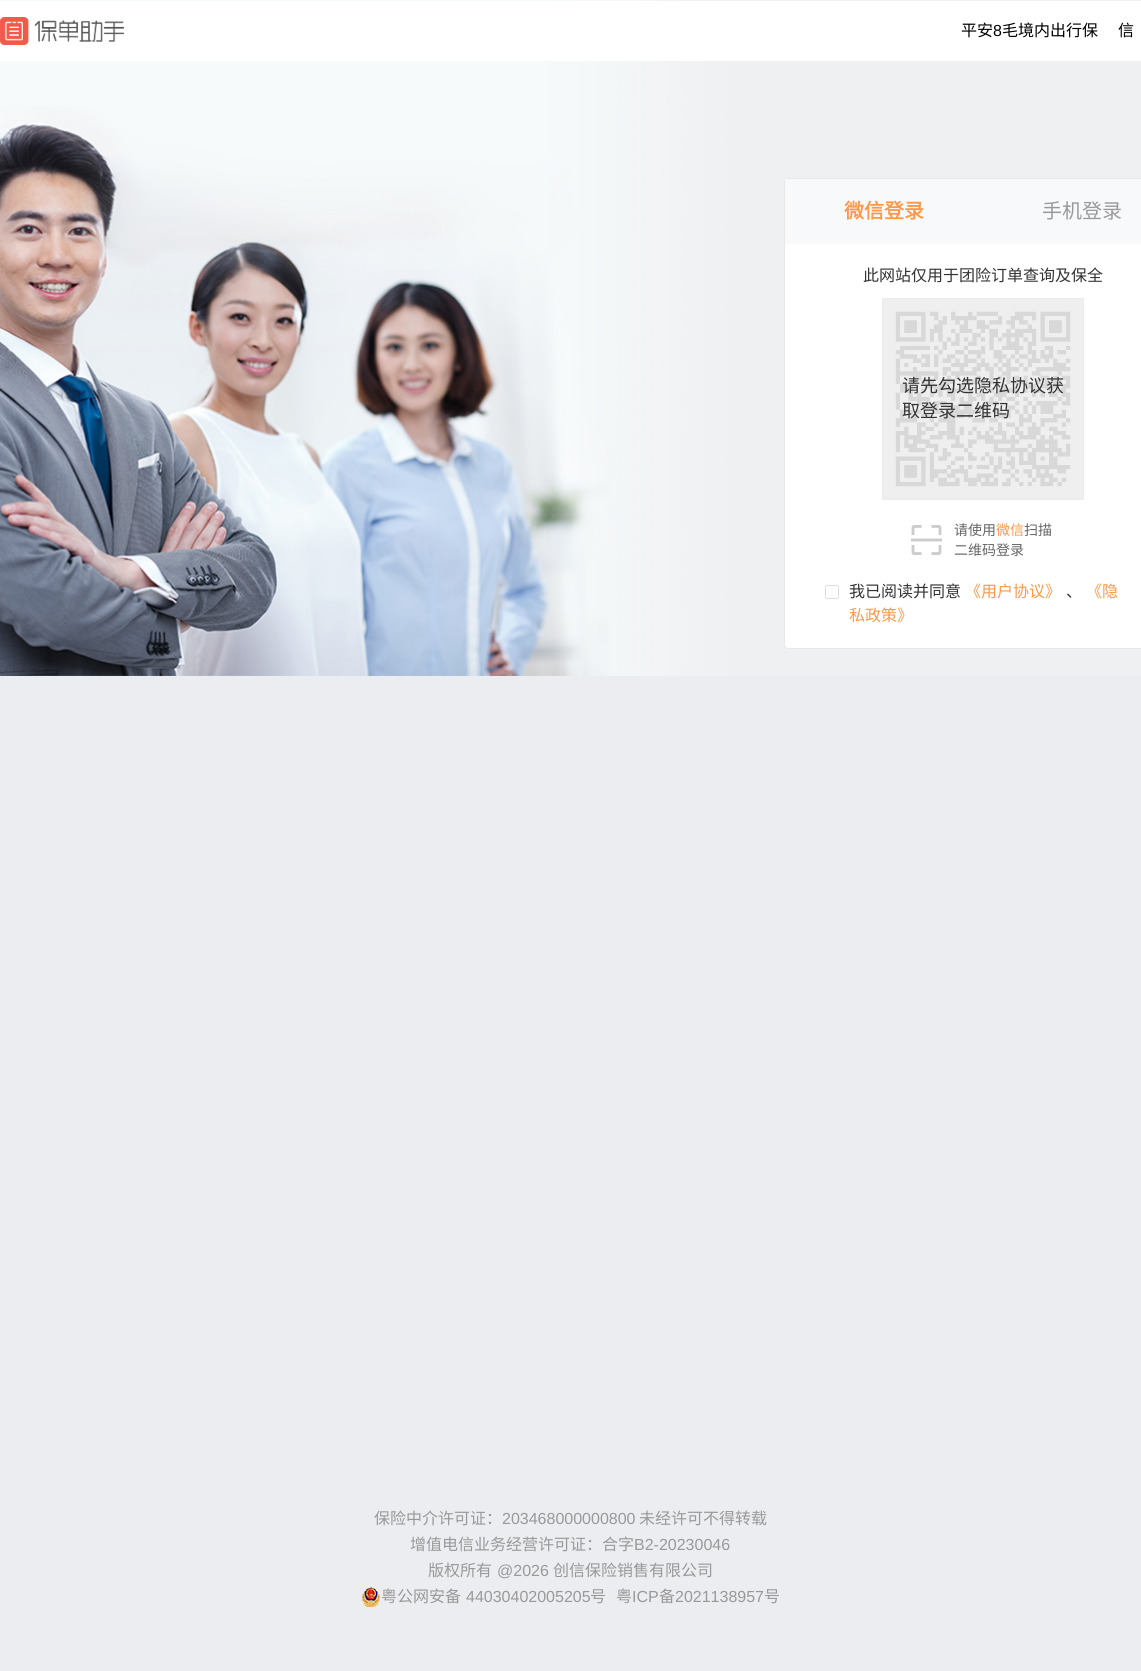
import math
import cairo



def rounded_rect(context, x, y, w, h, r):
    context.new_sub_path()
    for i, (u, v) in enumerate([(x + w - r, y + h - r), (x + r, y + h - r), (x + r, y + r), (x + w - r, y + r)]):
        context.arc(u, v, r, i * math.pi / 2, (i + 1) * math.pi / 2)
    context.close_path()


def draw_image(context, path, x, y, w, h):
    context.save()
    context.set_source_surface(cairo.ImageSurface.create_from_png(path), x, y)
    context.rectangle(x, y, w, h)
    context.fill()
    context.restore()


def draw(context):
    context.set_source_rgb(236 / 255, 237 / 255, 240 / 255)
    context.paint()
    draw_image(context, "images/1.png", 0, 0, 1141, 676)
    context.set_source_rgb(1, 1, 1)
    context.rectangle(0, 1, 1141, 60)
    context.fill()
    draw_image(context, "images/2.png", 0, 17, 124, 28)
    rounded_rect(context, 784.5, 178.5, 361, 470, 3.5)
    context.fill_preserve()
    context.set_source_rgb(232 / 255, 232 / 255, 232 / 255)
    context.set_line_width(1)
    context.stroke()
    context.set_source_rgb(248 / 255, 249 / 255, 251 / 255)
    context.rectangle(785, 179, 356, 65)
    context.fill()
    draw_image(context, "images/3.png", 882, 298, 202, 202)
    draw_image(context, "images/4.png", 911, 525, 31, 30)
    rounded_rect(context, 825.5, 585.5, 13, 13, 1.5)
    context.set_source_rgb(220 / 255, 223 / 255, 230 / 255)
    context.stroke()
    draw_image(context, "images/5.png", 362, 1587, 18, 20)
    context.select_font_face("Noto Sans CJK SC")
    context.set_font_size(16)
    context.set_source_rgb(0, 0, 0)
    context.move_to(961, 36)
    context.show_text("平安")
    context.select_font_face("Liberation Sans")
    context.move_to(993, 36)
    context.show_text("8")
    context.select_font_face("Noto Sans CJK SC")
    context.move_to(1002, 36)
    context.show_text("毛境内出行保")
    context.move_to(1118, 36)
    context.show_text("信")
    context.select_font_face("Noto Sans CJK SC", cairo.FontSlant.NORMAL, cairo.FontWeight.BOLD)
    context.set_font_size(20)
    context.set_source_rgb(1, 152 / 255, 72 / 255)
    context.move_to(844, 218)
    context.show_text("微信登录")
    context.select_font_face("Noto Sans CJK SC")
    context.set_source_rgb(153 / 255, 153 / 255, 153 / 255)
    context.move_to(1042, 218)
    context.show_text("手机登录")
    context.set_font_size(16)
    context.set_source_rgb(51 / 255, 51 / 255, 51 / 255)
    context.move_to(863, 281)
    context.show_text("此网站仅用于团险订单查询及保全")
    context.set_font_size(18)
    context.move_to(902, 392)
    context.show_text("请先勾选隐私协议获")
    context.move_to(902, 417)
    context.show_text("取登录二维码")
    context.set_font_size(14)
    context.set_source_rgb(102 / 255, 102 / 255, 102 / 255)
    context.move_to(954, 535)
    context.show_text("请使用")
    context.set_source_rgb(1, 152 / 255, 72 / 255)
    context.move_to(996, 535)
    context.show_text("微信")
    context.set_source_rgb(102 / 255, 102 / 255, 102 / 255)
    context.move_to(1024, 535)
    context.show_text("扫描")
    context.move_to(954, 555)
    context.show_text("二维码登录")
    context.set_font_size(16)
    context.set_source_rgb(51 / 255, 51 / 255, 51 / 255)
    context.move_to(849, 597)
    context.show_text("我已阅读并同意")
    context.set_source_rgb(1, 152 / 255, 72 / 255)
    context.move_to(965, 597)
    context.show_text("《用户协议》")
    context.set_source_rgb(51 / 255, 51 / 255, 51 / 255)
    context.move_to(1066, 597)
    context.show_text("、")
    context.set_source_rgb(1, 152 / 255, 72 / 255)
    context.move_to(1086, 597)
    context.show_text("《隐")
    context.move_to(849, 621)
    context.show_text("私政策》")
    context.set_source_rgb(153 / 255, 153 / 255, 153 / 255)
    context.move_to(374, 1524)
    context.show_text("保险中介许可证：")
    context.select_font_face("Liberation Sans")
    context.move_to(502, 1524)
    context.show_text("203468000000800")
    context.select_font_face("Noto Sans CJK SC")
    context.move_to(639, 1524)
    context.show_text("未经许可不得转载")
    context.move_to(410, 1550)
    context.show_text("增值电信业务经营许可证：合字")
    context.select_font_face("Liberation Sans")
    context.move_to(634, 1550)
    context.show_text("B2-20230046")
    context.select_font_face("Noto Sans CJK SC")
    context.move_to(428, 1576)
    context.show_text("版权所有")
    context.select_font_face("Liberation Sans")
    context.move_to(497, 1576)
    context.show_text("@2026")
    context.select_font_face("Noto Sans CJK SC")
    context.move_to(553, 1576)
    context.show_text("创信保险销售有限公司")
    context.move_to(381, 1602)
    context.show_text("粤公网安备")
    context.select_font_face("Liberation Sans")
    context.move_to(466, 1602)
    context.show_text("44030402005205")
    context.select_font_face("Noto Sans CJK SC")
    context.move_to(590, 1602)
    context.show_text("号")
    context.move_to(616, 1602)
    context.show_text("粤")
    context.select_font_face("Liberation Sans")
    context.move_to(632, 1602)
    context.show_text("ICP")
    context.select_font_face("Noto Sans CJK SC")
    context.move_to(659, 1602)
    context.show_text("备")
    context.select_font_face("Liberation Sans")
    context.move_to(675, 1602)
    context.show_text("2021138957")
    context.select_font_face("Noto Sans CJK SC")
    context.move_to(764, 1602)
    context.show_text("号")


surface = cairo.ImageSurface(cairo.Format.RGB24, 1141, 1671)
context = cairo.Context(surface)
options = cairo.FontOptions()
options.set_hint_metrics(cairo.HintMetrics.OFF)
options.set_hint_style(cairo.HintStyle.NONE)
context.set_font_options(options)
context.set_miter_limit(4)
draw(context)
surface.write_to_png("out.png")
